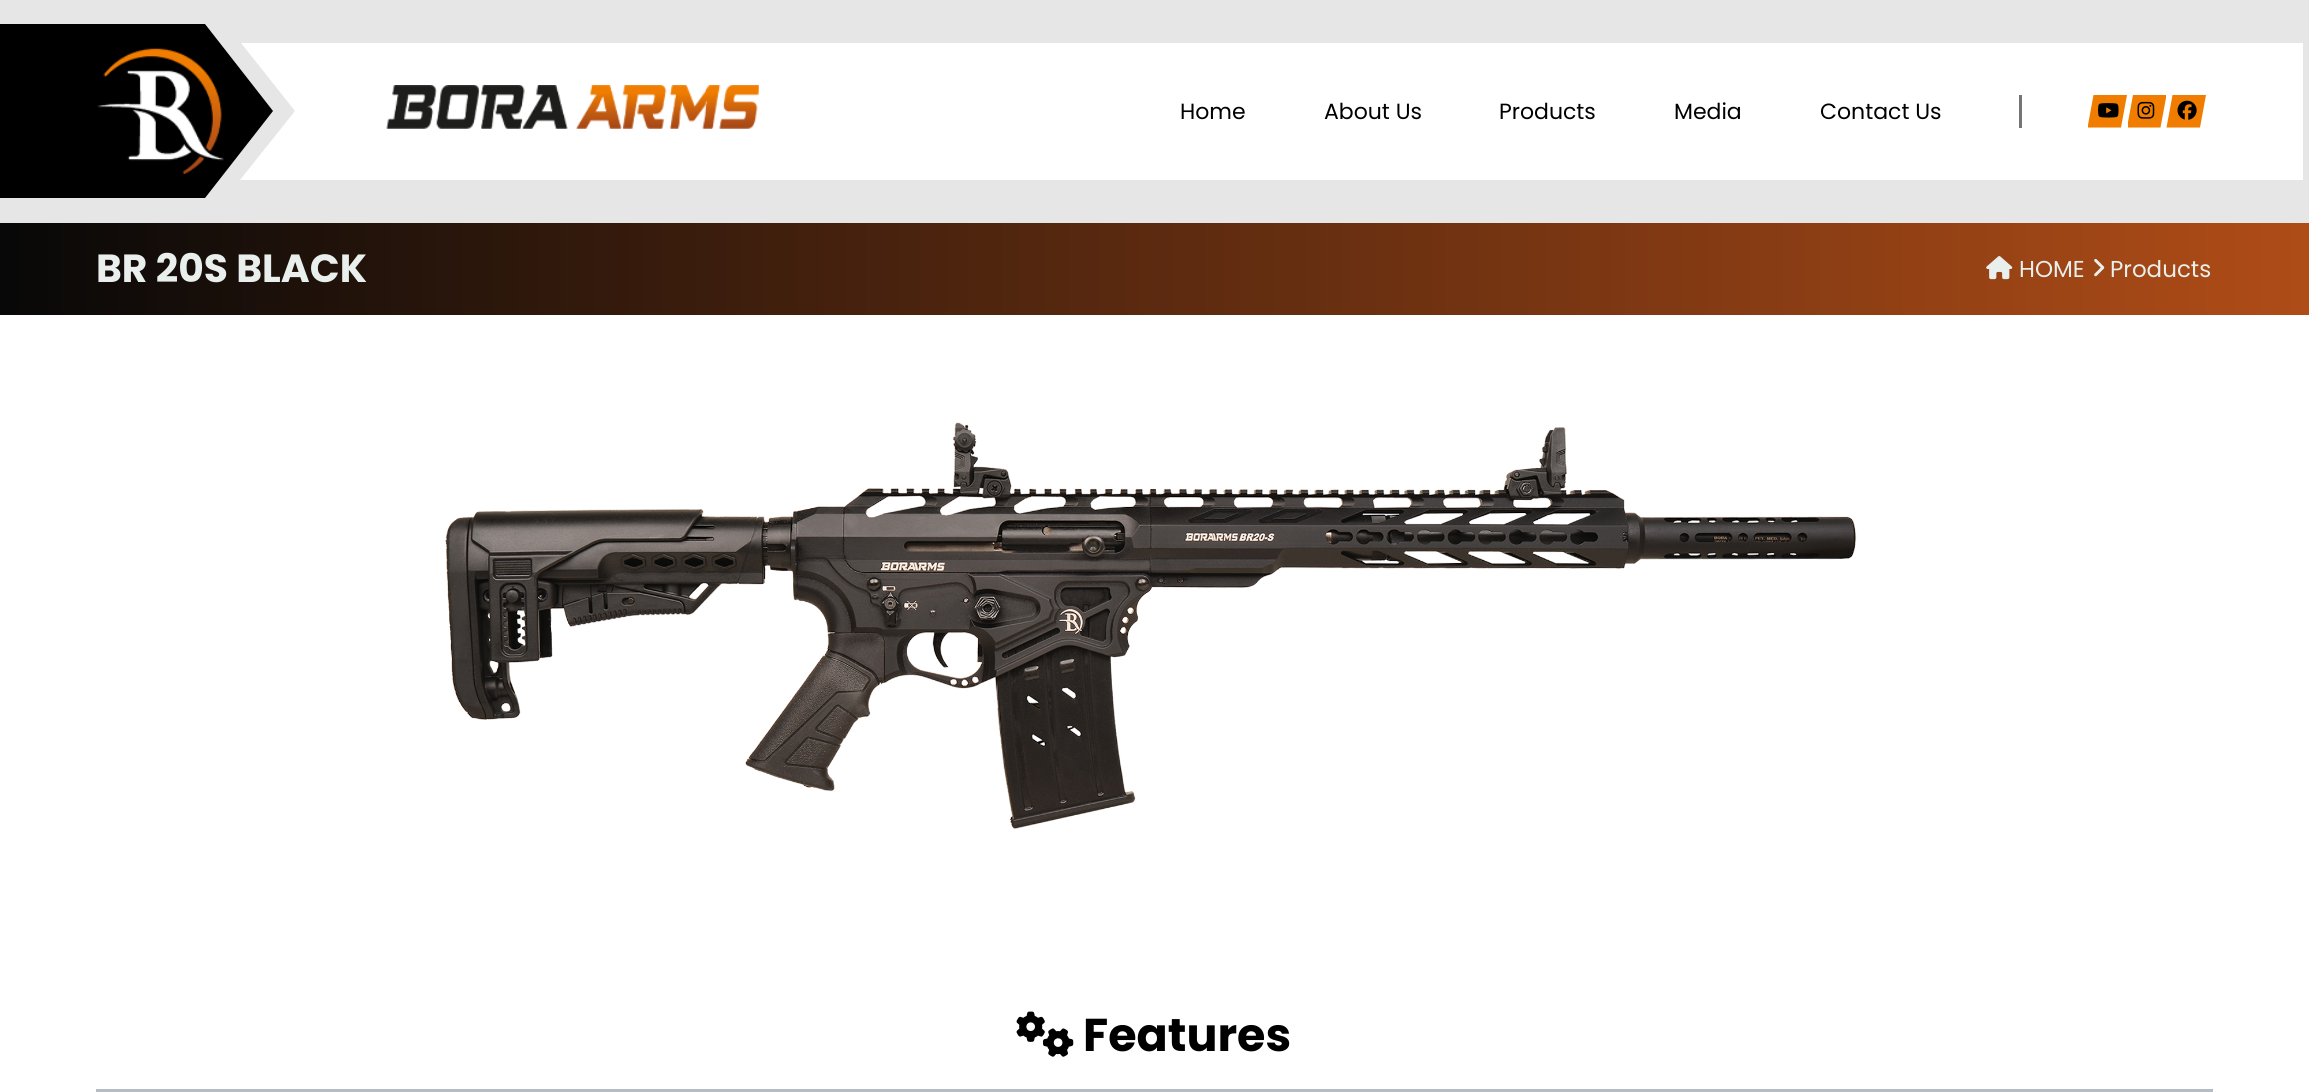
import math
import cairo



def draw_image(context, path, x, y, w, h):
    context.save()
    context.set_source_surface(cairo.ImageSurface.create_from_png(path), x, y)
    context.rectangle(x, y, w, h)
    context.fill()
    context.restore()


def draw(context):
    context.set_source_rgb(1, 1, 1)
    context.paint()
    context.set_source_rgb(230 / 255, 230 / 255, 230 / 255)
    context.rectangle(0, 0, 2309, 223)
    context.fill()
    context.set_source_rgb(0, 0, 0)
    context.new_path()
    context.move_to(205, 24)
    context.line_to(0, 24)
    context.line_to(0, 198)
    context.line_to(205, 198)
    context.line_to(273, 111)
    context.close_path()
    context.fill()
    draw_image(context, "images/1.png", 97, 48, 127, 126)
    context.set_source_rgb(1, 1, 1)
    context.new_path()
    context.move_to(241, 43)
    context.line_to(2303, 43)
    context.line_to(2303, 180)
    context.line_to(240, 180)
    context.line_to(295, 111)
    context.close_path()
    context.fill()
    draw_image(context, "images/2.png", 386, 85, 373, 44)
    context.set_source_rgb(117 / 255, 117 / 255, 117 / 255)
    context.rectangle(2019, 95, 3, 33)
    context.fill()
    context.set_source_rgb(240 / 255, 125 / 255, 0)
    context.new_path()
    context.move_to(2093.5, 95)
    context.line_to(2088, 125)
    context.line_to(2088, 127.5)
    context.line_to(2121, 127.5)
    context.line_to(2127, 95)
    context.close_path()
    context.fill()
    draw_image(context, "images/3.png", 2098, 103, 21, 15)
    context.new_path()
    context.move_to(2133, 95)
    context.line_to(2128, 122)
    context.line_to(2128, 127.5)
    context.line_to(2160.5, 127.5)
    context.line_to(2166, 98)
    context.line_to(2166, 95)
    context.close_path()
    context.fill()
    draw_image(context, "images/4.png", 2137, 101, 18, 18)
    context.new_path()
    context.move_to(2172.5, 95)
    context.line_to(2166.5, 127.5)
    context.line_to(2200, 127.5)
    context.line_to(2206, 95)
    context.close_path()
    context.fill()
    draw_image(context, "images/5.png", 2177, 100, 20, 20)
    gradient = cairo.LinearGradient(0, 269, 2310, 269)
    gradient.add_color_stop_rgba(0, 8 / 255, 8 / 255, 8 / 255, 1)
    gradient.add_color_stop_rgba(1, 175 / 255, 76 / 255, 23 / 255, 1)
    context.set_source(gradient)
    context.rectangle(0, 223, 2309, 92)
    context.fill()
    draw_image(context, "images/6.png", 1986, 256, 27, 24)
    draw_image(context, "images/7.png", 2094, 258, 11, 19)
    draw_image(context, "images/8.png", 445, 422, 1412, 407)
    context.set_source_rgb(182 / 255, 187 / 255, 196 / 255)
    context.rectangle(96, 1089, 2117, 3)
    context.fill()
    draw_image(context, "images/9.png", 1016, 1011, 58, 46)
    context.select_font_face("Poppins")
    context.set_font_size(22)
    context.set_source_rgb(0, 0, 0)
    context.move_to(1180, 119)
    context.show_text("Home")
    context.move_to(1324, 119)
    context.show_text("About Us")
    context.move_to(1499, 119)
    context.show_text("Products")
    context.move_to(1674, 119)
    context.show_text("Media")
    context.move_to(1820, 119)
    context.show_text("Contact Us")
    context.select_font_face("Poppins", cairo.FontSlant.NORMAL, cairo.FontWeight.BOLD)
    context.set_font_size(39.25)
    context.set_source_rgb(233 / 255, 239 / 255, 236 / 255)
    context.move_to(96, 282)
    context.show_text("BR 20S BLACK")
    context.select_font_face("Poppins")
    context.set_font_size(23)
    context.move_to(2019, 277)
    context.show_text("HOME")
    context.move_to(2110, 277)
    context.show_text("Products")
    context.select_font_face("Poppins", cairo.FontSlant.NORMAL, cairo.FontWeight.BOLD)
    context.set_font_size(46)
    context.set_source_rgb(0, 0, 0)
    context.move_to(1083, 1051)
    context.show_text("Features")


surface = cairo.ImageSurface(cairo.Format.RGB24, 2309, 1092)
context = cairo.Context(surface)
options = cairo.FontOptions()
options.set_hint_metrics(cairo.HintMetrics.OFF)
options.set_hint_style(cairo.HintStyle.NONE)
context.set_font_options(options)
context.set_miter_limit(4)
draw(context)
surface.write_to_png("out.png")
